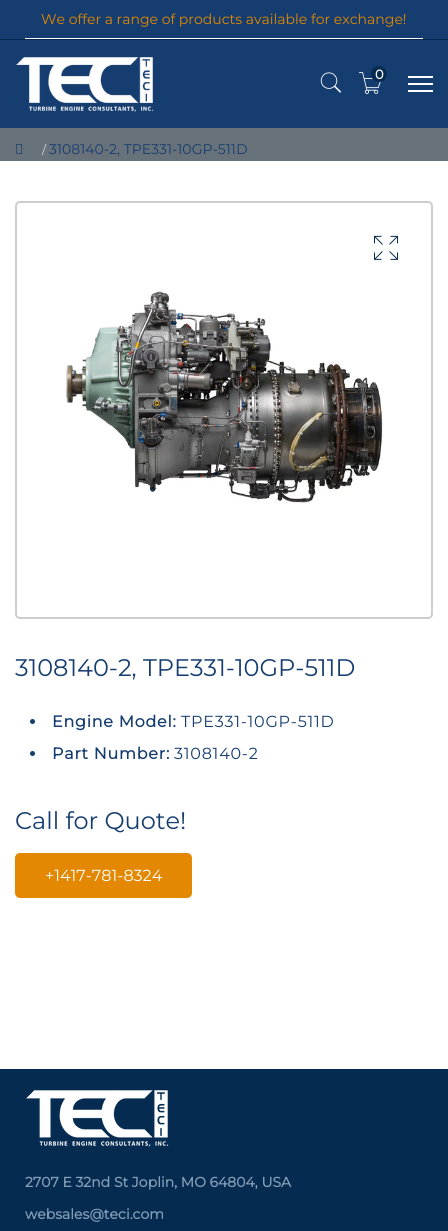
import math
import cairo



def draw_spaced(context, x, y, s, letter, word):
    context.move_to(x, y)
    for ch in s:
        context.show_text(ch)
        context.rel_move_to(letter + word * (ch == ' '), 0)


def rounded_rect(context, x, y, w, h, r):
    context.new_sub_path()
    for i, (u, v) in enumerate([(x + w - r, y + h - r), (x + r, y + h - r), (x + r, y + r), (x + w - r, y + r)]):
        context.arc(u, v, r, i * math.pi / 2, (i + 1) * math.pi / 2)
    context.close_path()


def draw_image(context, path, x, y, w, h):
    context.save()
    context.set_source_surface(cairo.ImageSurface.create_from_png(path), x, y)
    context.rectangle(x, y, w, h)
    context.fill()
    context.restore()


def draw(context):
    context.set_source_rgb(1, 1, 1)
    context.paint()
    context.set_source_rgb(22 / 255, 61 / 255, 112 / 255)
    context.rectangle(0, 0, 448, 128)
    context.fill()
    context.set_source_rgb(5 / 255, 43 / 255, 81 / 255)
    context.rectangle(0, 39, 448, 1)
    context.fill()
    context.set_source_rgb(1, 1, 1)
    context.rectangle(25, 38, 398, 1)
    context.fill()
    draw_image(context, "images/1.png", 16, 57, 138, 55)
    draw_image(context, "images/2.png", 320, 72, 22, 21)
    draw_image(context, "images/3.png", 359, 72, 22, 22)
    context.set_source_rgb(5 / 255, 43 / 255, 81 / 255)
    context.arc(379, 74, 8, 0, 2 * math.pi)
    context.fill()
    context.set_source_rgb(1, 1, 1)
    context.rectangle(408, 76, 25, 2)
    context.fill()
    context.rectangle(408, 83, 25, 2)
    context.fill()
    context.rectangle(408, 90, 25, 2)
    context.fill()
    context.set_source_rgb(104 / 255, 114 / 255, 122 / 255)
    context.rectangle(0, 128, 448, 33)
    context.fill()
    draw_image(context, "images/4.png", 16, 144, 7, 10)
    rounded_rect(context, 16, 202, 416, 416, 4)
    context.set_source_rgb(206 / 255, 206 / 255, 206 / 255)
    context.stroke()
    draw_image(context, "images/5.png", 374, 235, 24, 25)
    draw_image(context, "images/6.png", 65, 291, 319, 214)
    context.set_source_rgb(22 / 255, 61 / 255, 112 / 255)
    context.arc(32.5, 721.5, 2.5, 0, 2 * math.pi)
    context.fill()
    context.arc(32.5, 753.5, 2.5, 0, 2 * math.pi)
    context.fill()
    context.set_source_rgb(227 / 255, 136 / 255, 0)
    rounded_rect(context, 15, 853, 177, 45, 5)
    context.fill()
    context.set_source_rgb(5 / 255, 43 / 255, 81 / 255)
    context.rectangle(0, 1069, 448, 162)
    context.fill()
    draw_image(context, "images/7.png", 26, 1090, 143, 57)
    context.select_font_face("Montserrat")
    context.set_font_size(14)
    context.set_source_rgb(227 / 255, 136 / 255, 0)
    context.move_to(41, 24)
    context.show_text("We offer a range of products available for exchange!")
    context.select_font_face("Montserrat", cairo.FontSlant.NORMAL, cairo.FontWeight.BOLD)
    context.set_font_size(13)
    context.set_source_rgb(1, 1, 1)
    context.move_to(375, 79)
    context.show_text("0")
    context.select_font_face("Montserrat")
    context.set_font_size(12)
    context.set_source_rgb(221 / 255, 221 / 255, 221 / 255)
    context.move_to(42, 154)
    context.show_text("/")
    context.set_font_size(14)
    context.set_source_rgb(22 / 255, 61 / 255, 112 / 255)
    context.move_to(49, 154)
    context.show_text("3108140-2, TPE331-10GP-511D")
    context.set_font_size(24)
    context.move_to(15, 676)
    context.show_text("3108140-2, TPE331-10GP-511D")
    context.select_font_face("Montserrat", cairo.FontSlant.NORMAL, cairo.FontWeight.BOLD)
    context.set_font_size(16)
    draw_spaced(context, 52, 727, "Engine Model:", 0.75, 0)
    context.select_font_face("Montserrat")
    draw_spaced(context, 181, 727, "TPE331-10GP-511D", 0.75, 0)
    context.select_font_face("Montserrat", cairo.FontSlant.NORMAL, cairo.FontWeight.BOLD)
    draw_spaced(context, 52, 759, "Part Number:", 0.75, 0)
    context.select_font_face("Montserrat")
    draw_spaced(context, 174, 759, "3108140-2", 0.75, 0)
    context.set_font_size(24)
    context.move_to(15, 829)
    context.show_text("Call for Quote!")
    context.set_font_size(16)
    context.set_source_rgb(1, 1, 1)
    context.move_to(45, 881)
    context.show_text("+1417-781-8324")
    context.select_font_face("Montserrat", cairo.FontSlant.NORMAL, cairo.FontWeight.BOLD)
    context.set_font_size(14)
    context.set_source_rgb(132 / 255, 158 / 255, 184 / 255)
    context.move_to(25, 1187)
    context.show_text("2707 E 32nd St Joplin, MO 64804, USA")
    context.move_to(25, 1219)
    context.show_text("websales@teci.com")


surface = cairo.ImageSurface(cairo.Format.RGB24, 448, 1231)
context = cairo.Context(surface)
options = cairo.FontOptions()
options.set_hint_metrics(cairo.HintMetrics.OFF)
options.set_hint_style(cairo.HintStyle.NONE)
context.set_font_options(options)
context.set_miter_limit(4)
draw(context)
surface.write_to_png("out.png")
